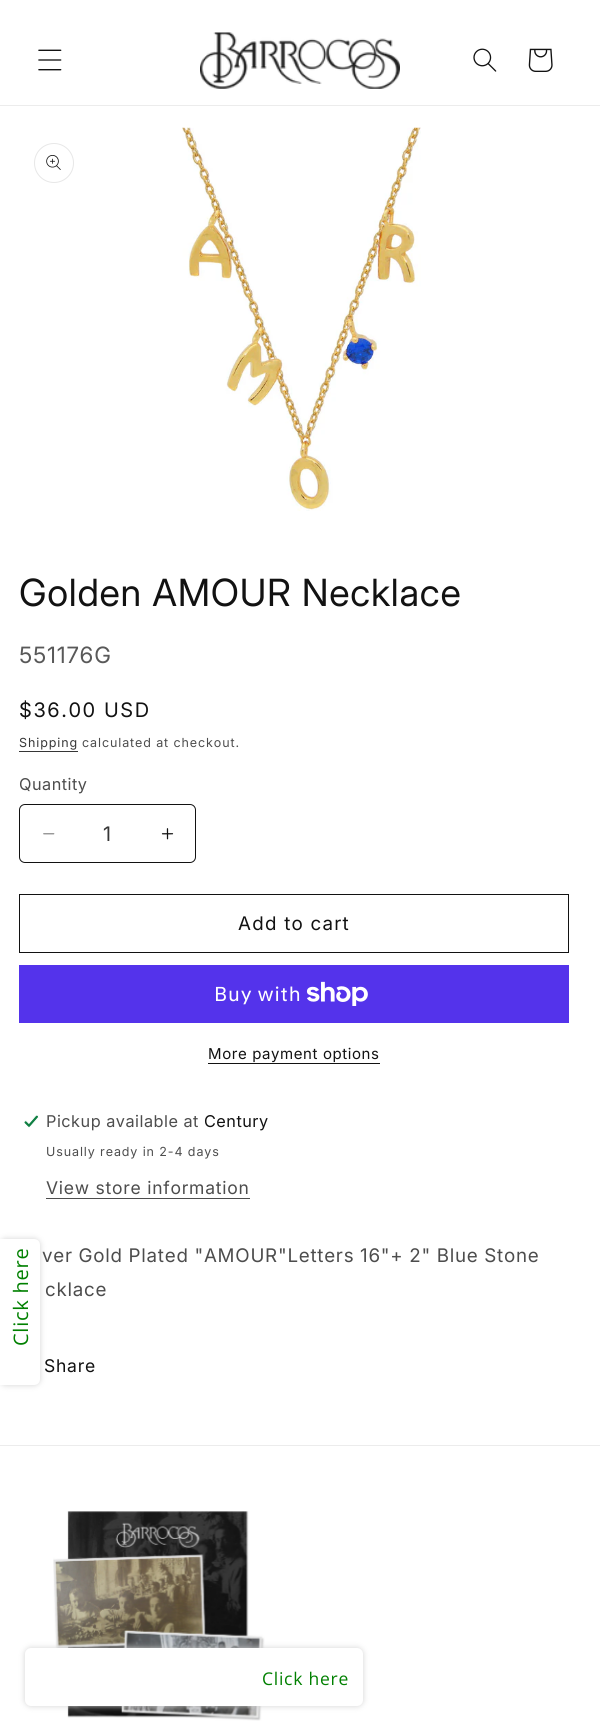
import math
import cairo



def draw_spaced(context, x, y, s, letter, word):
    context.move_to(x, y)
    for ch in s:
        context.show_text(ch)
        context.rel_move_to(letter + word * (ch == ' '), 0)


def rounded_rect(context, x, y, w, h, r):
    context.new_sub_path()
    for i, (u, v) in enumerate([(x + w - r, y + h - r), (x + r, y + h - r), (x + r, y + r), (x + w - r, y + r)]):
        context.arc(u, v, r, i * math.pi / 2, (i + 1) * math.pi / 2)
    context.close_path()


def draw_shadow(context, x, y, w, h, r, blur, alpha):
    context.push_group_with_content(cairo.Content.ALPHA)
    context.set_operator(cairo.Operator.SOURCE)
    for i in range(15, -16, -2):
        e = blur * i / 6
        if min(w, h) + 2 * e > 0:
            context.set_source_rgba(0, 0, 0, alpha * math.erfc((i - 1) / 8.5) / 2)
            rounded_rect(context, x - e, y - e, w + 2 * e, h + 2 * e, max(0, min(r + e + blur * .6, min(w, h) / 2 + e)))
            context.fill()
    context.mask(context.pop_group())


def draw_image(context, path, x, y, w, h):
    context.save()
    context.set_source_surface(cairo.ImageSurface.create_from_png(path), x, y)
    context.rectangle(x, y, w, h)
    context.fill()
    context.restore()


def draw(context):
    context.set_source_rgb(1, 1, 1)
    context.paint()
    context.set_source_rgb(236 / 255, 236 / 255, 236 / 255)
    context.rectangle(0, 105, 600, 1)
    context.fill()
    draw_image(context, "images/1.png", 38, 49, 24, 22)
    draw_image(context, "images/2.png", 200, 32, 200, 57)
    draw_image(context, "images/3.png", 473, 48, 24, 24)
    draw_image(context, "images/4.png", 528, 48, 25, 24)
    context.arc(54, 163, 19.5, 0, 2 * math.pi)
    context.set_source_rgb(231 / 255, 231 / 255, 231 / 255)
    context.set_line_width(1)
    context.stroke()
    draw_image(context, "images/5.png", 46, 155, 15, 15)
    draw_image(context, "images/6.png", 182, 127, 239, 384)
    context.set_source_rgb(54 / 255, 54 / 255, 54 / 255)
    context.rectangle(19, 751, 59, 1)
    context.fill()
    draw_image(context, "images/7.png", 43, 833, 12, 2)
    draw_image(context, "images/8.png", 161, 828, 13, 12)
    rounded_rect(context, 19.5, 804.5, 176, 58, 5.5)
    context.set_source_rgb(18 / 255, 18 / 255, 18 / 255)
    context.stroke()
    context.rectangle(19.5, 894.5, 549, 58)
    context.stroke()
    context.set_source_rgb(84 / 255, 51 / 255, 235 / 255)
    context.rectangle(19, 965, 550, 58)
    context.fill()
    draw_image(context, "images/9.png", 306, 981, 62, 25)
    context.set_source_rgb(18 / 255, 18 / 255, 18 / 255)
    context.rectangle(208, 1063, 172, 1)
    context.fill()
    draw_image(context, "images/10.png", 24, 1115, 15, 13)
    context.set_source_rgb(77 / 255, 77 / 255, 77 / 255)
    context.rectangle(46, 1198, 204, 1)
    context.fill()
    context.set_source_rgb(211 / 255, 211 / 255, 211 / 255)
    draw_shadow(context, 0, 1239, 40, 146, 6, 3, 1)
    context.set_source_rgb(1, 1, 1)
    context.new_path()
    context.move_to(0, 1239)
    context.line_to(34, 1239)
    context.curve_to(37.5, 1239, 40, 1241.5, 40, 1245)
    context.line_to(40, 1379)
    context.curve_to(40, 1382.5, 37.5, 1385, 34, 1385)
    context.line_to(0, 1385)
    context.close_path()
    context.fill()
    context.set_source_rgb(236 / 255, 236 / 255, 236 / 255)
    context.rectangle(0, 1445, 600, 1)
    context.fill()
    draw_image(context, "images/11.png", 53, 1511, 212, 210)
    context.set_source_rgb(211 / 255, 211 / 255, 211 / 255)
    draw_shadow(context, 25, 1648, 338, 58, 6, 3, 1)
    context.set_source_rgb(1, 1, 1)
    rounded_rect(context, 25, 1648, 338, 58, 6)
    context.fill()
    context.select_font_face("Inter")
    context.set_font_size(37.5)
    context.set_source_rgb(18 / 255, 18 / 255, 18 / 255)
    draw_spaced(context, 19, 606, "Golden AMOUR Necklace", 0.75, 0)
    context.select_font_face("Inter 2")
    context.set_font_size(22.5)
    context.set_source_rgb(89 / 255, 89 / 255, 89 / 255)
    draw_spaced(context, 19, 663, "551176G", 0.75, 0)
    context.select_font_face("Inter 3")
    context.set_font_size(20)
    context.set_source_rgb(18 / 255, 18 / 255, 18 / 255)
    draw_spaced(context, 19, 717, "$36.00 USD", 1.6, 0)
    context.select_font_face("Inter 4")
    context.set_font_size(12.5)
    context.set_source_rgb(54 / 255, 54 / 255, 54 / 255)
    draw_spaced(context, 19, 747, "Shipping", 0.9, 0)
    context.set_source_rgb(77 / 255, 77 / 255, 77 / 255)
    draw_spaced(context, 82, 747, "calculated at checkout.", 0.9, 0)
    context.set_font_size(16.25)
    draw_spaced(context, 19, 790, "Quantity", 0.5, 0)
    context.select_font_face("Inter 3")
    context.set_font_size(20)
    context.set_source_rgb(54 / 255, 54 / 255, 54 / 255)
    context.move_to(103, 841)
    context.show_text("1")
    context.select_font_face("Inter 4")
    context.set_font_size(18.75)
    context.set_source_rgb(18 / 255, 18 / 255, 18 / 255)
    draw_spaced(context, 238, 930, "Add to cart", 1.25, 0)
    context.select_font_face("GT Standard")
    context.set_font_size(20)
    context.set_source_rgb(1, 1, 1)
    draw_spaced(context, 214, 1001, "Buy with", 0.75, 0)
    context.select_font_face("Inter 4")
    context.set_font_size(15)
    context.set_source_rgb(18 / 255, 18 / 255, 18 / 255)
    draw_spaced(context, 208, 1059, "More payment options", 0.6, 0)
    context.set_font_size(16.25)
    context.set_source_rgb(77 / 255, 77 / 255, 77 / 255)
    draw_spaced(context, 46, 1127, "Pickup available at", 0.5, 0)
    context.set_source_rgb(18 / 255, 18 / 255, 18 / 255)
    draw_spaced(context, 204, 1127, "Century", 0.5, 0)
    context.set_font_size(12.5)
    context.set_source_rgb(77 / 255, 77 / 255, 77 / 255)
    draw_spaced(context, 46, 1156, "Usually ready in 2-4 days", 0.9, 0)
    context.set_font_size(17.5)
    draw_spaced(context, 46, 1194, "View store information", 0.75, 0)
    context.set_font_size(18.75)
    draw_spaced(context, 42, 1262, "ver Gold Plated \"AMOUR\"Letters 16\"+ 2\" Blue Stone", 0.75, -0.25)
    draw_spaced(context, 45, 1296, "cklace", 0.75, 0)
    context.set_font_size(17.5)
    context.set_source_rgb(18 / 255, 18 / 255, 18 / 255)
    draw_spaced(context, 44, 1372, "Share", 0.75, 0)
    context.select_font_face("Open Sans")
    context.set_font_size(20)
    context.set_source_rgb(0, 128 / 255, 0)
    context.save()
    context.translate(28, 1346)
    context.rotate(-90 * math.pi / 180)
    draw_spaced(context, 0, 0, "Click here", 0.75, 0)
    context.restore()
    context.set_font_size(17.5)
    draw_spaced(context, 262, 1685, "Click here", 0.75, 0)


surface = cairo.ImageSurface(cairo.Format.RGB24, 600, 1731)
context = cairo.Context(surface)
options = cairo.FontOptions()
options.set_hint_metrics(cairo.HintMetrics.OFF)
options.set_hint_style(cairo.HintStyle.NONE)
context.set_font_options(options)
context.set_miter_limit(4)
draw(context)
surface.write_to_png("out.png")
